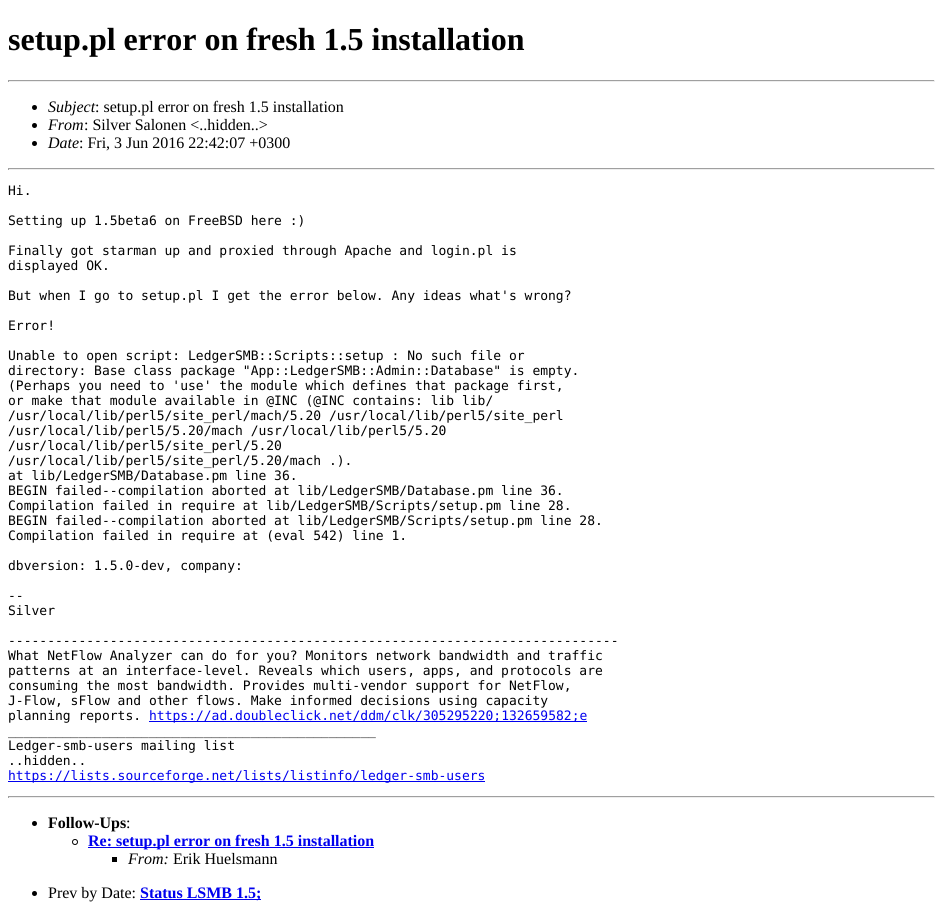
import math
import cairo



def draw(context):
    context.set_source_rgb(1, 1, 1)
    context.paint()
    context.set_source_rgb(159 / 255, 159 / 255, 159 / 255)
    context.rectangle(8, 80, 927, 1)
    context.fill()
    context.set_source_rgb(238 / 255, 238 / 255, 238 / 255)
    context.rectangle(934, 80, 1, 2)
    context.fill()
    context.rectangle(8, 81, 927, 1)
    context.fill()
    context.set_source_rgb(159 / 255, 159 / 255, 159 / 255)
    context.rectangle(8, 80, 1, 2)
    context.fill()
    context.set_source_rgb(0, 0, 0)
    context.arc(34.5, 107.5, 2.5, 0, 2 * math.pi)
    context.fill()
    context.arc(34.5, 125.5, 2.5, 0, 2 * math.pi)
    context.fill()
    context.arc(34.5, 143.5, 2.5, 0, 2 * math.pi)
    context.fill()
    context.set_source_rgb(159 / 255, 159 / 255, 159 / 255)
    context.rectangle(8, 168, 927, 1)
    context.fill()
    context.set_source_rgb(238 / 255, 238 / 255, 238 / 255)
    context.rectangle(934, 168, 1, 2)
    context.fill()
    context.rectangle(8, 169, 927, 1)
    context.fill()
    context.set_source_rgb(159 / 255, 159 / 255, 159 / 255)
    context.rectangle(8, 168, 1, 2)
    context.fill()
    context.set_source_rgb(0, 0, 238 / 255)
    context.rectangle(149, 721, 438, 1)
    context.fill()
    context.rectangle(8, 781, 477, 1)
    context.fill()
    context.set_source_rgb(159 / 255, 159 / 255, 159 / 255)
    context.rectangle(8, 796, 927, 1)
    context.fill()
    context.set_source_rgb(238 / 255, 238 / 255, 238 / 255)
    context.rectangle(934, 796, 1, 2)
    context.fill()
    context.rectangle(8, 797, 927, 1)
    context.fill()
    context.set_source_rgb(159 / 255, 159 / 255, 159 / 255)
    context.rectangle(8, 796, 1, 2)
    context.fill()
    context.set_source_rgb(0, 0, 0)
    context.arc(34.5, 823.5, 2.5, 0, 2 * math.pi)
    context.fill()
    context.arc(75, 842, 2.5, 0, 2 * math.pi)
    context.set_line_width(1)
    context.stroke()
    context.set_source_rgb(0, 0, 238 / 255)
    context.rectangle(88, 847, 286, 1)
    context.fill()
    context.set_source_rgb(0, 0, 0)
    context.rectangle(112, 857, 5, 5)
    context.fill()
    context.arc(34.5, 893.5, 2.5, 0, 2 * math.pi)
    context.fill()
    context.set_source_rgb(0, 0, 238 / 255)
    context.rectangle(140, 899, 121, 1)
    context.fill()
    context.select_font_face("Liberation Serif", cairo.FontSlant.NORMAL, cairo.FontWeight.BOLD)
    context.set_font_size(32)
    context.set_source_rgb(0, 0, 0)
    context.move_to(8, 50)
    context.show_text("setup.pl error on fresh 1.5 installation")
    context.select_font_face("Liberation Serif", cairo.FontSlant.ITALIC)
    context.set_font_size(16)
    context.move_to(48, 112)
    context.show_text("Subject")
    context.select_font_face("Liberation Serif")
    context.move_to(95, 112)
    context.show_text(": setup.pl error on fresh 1.5 installation")
    context.select_font_face("Liberation Serif", cairo.FontSlant.ITALIC)
    context.move_to(48, 130)
    context.show_text("From")
    context.select_font_face("Liberation Serif")
    context.move_to(84, 130)
    context.show_text(": Silver Salonen <..hidden..>")
    context.select_font_face("Liberation Serif", cairo.FontSlant.ITALIC)
    context.move_to(48, 148)
    context.show_text("Date")
    context.select_font_face("Liberation Serif")
    context.move_to(79, 148)
    context.show_text(": Fri, 3 Jun 2016 22:42:07 +0300")
    context.select_font_face("DejaVu Sans Mono")
    context.set_font_size(13)
    context.move_to(8, 195)
    context.show_text("Hi.")
    context.move_to(8, 225)
    context.show_text("Setting up 1.5beta6 on FreeBSD here :)")
    context.move_to(8, 255)
    context.show_text("Finally got starman up and proxied through Apache and login.pl is")
    context.move_to(8, 270)
    context.show_text("displayed OK.")
    context.move_to(8, 300)
    context.show_text("But when I go to setup.pl I get the error below. Any ideas what's wrong?")
    context.move_to(8, 330)
    context.show_text("Error!")
    context.move_to(8, 360)
    context.show_text("Unable to open script: LedgerSMB::Scripts::setup : No such file or")
    context.move_to(8, 375)
    context.show_text("directory: Base class package \"App::LedgerSMB::Admin::Database\" is empty.")
    context.move_to(8, 390)
    context.show_text("(Perhaps you need to 'use' the module which defines that package first,")
    context.move_to(8, 405)
    context.show_text("or make that module available in @INC (@INC contains: lib lib/")
    context.move_to(8, 420)
    context.show_text("/usr/local/lib/perl5/site_perl/mach/5.20 /usr/local/lib/perl5/site_perl")
    context.move_to(8, 435)
    context.show_text("/usr/local/lib/perl5/5.20/mach /usr/local/lib/perl5/5.20")
    context.move_to(8, 450)
    context.show_text("/usr/local/lib/perl5/site_perl/5.20")
    context.move_to(8, 465)
    context.show_text("/usr/local/lib/perl5/site_perl/5.20/mach .).")
    context.move_to(8, 480)
    context.show_text("at lib/LedgerSMB/Database.pm line 36.")
    context.move_to(8, 495)
    context.show_text("BEGIN failed--compilation aborted at lib/LedgerSMB/Database.pm line 36.")
    context.move_to(8, 510)
    context.show_text("Compilation failed in require at lib/LedgerSMB/Scripts/setup.pm line 28.")
    context.move_to(8, 525)
    context.show_text("BEGIN failed--compilation aborted at lib/LedgerSMB/Scripts/setup.pm line 28.")
    context.move_to(8, 540)
    context.show_text("Compilation failed in require at (eval 542) line 1.")
    context.move_to(8, 570)
    context.show_text("dbversion: 1.5.0-dev, company:")
    context.move_to(8, 600)
    context.show_text("--")
    context.move_to(8, 615)
    context.show_text("Silver")
    context.move_to(8, 645)
    context.show_text("------------------------------------------------------------------------------")
    context.move_to(8, 660)
    context.show_text("What NetFlow Analyzer can do for you? Monitors network bandwidth and traffic")
    context.move_to(8, 675)
    context.show_text("patterns at an interface-level. Reveals which users, apps, and protocols are")
    context.move_to(8, 690)
    context.show_text("consuming the most bandwidth. Provides multi-vendor support for NetFlow,")
    context.move_to(8, 705)
    context.show_text("J-Flow, sFlow and other flows. Make informed decisions using capacity")
    context.move_to(8, 720)
    context.show_text("planning reports.")
    context.set_source_rgb(0, 0, 238 / 255)
    context.move_to(149, 720)
    context.show_text("https://ad.doubleclick.net/ddm/clk/305295220;132659582;e")
    context.set_source_rgb(0, 0, 0)
    context.move_to(8, 735)
    context.show_text("_______________________________________________")
    context.move_to(8, 750)
    context.show_text("Ledger-smb-users mailing list")
    context.move_to(8, 765)
    context.show_text("..hidden..")
    context.set_source_rgb(0, 0, 238 / 255)
    context.move_to(8, 780)
    context.show_text("https://lists.sourceforge.net/lists/listinfo/ledger-smb-users")
    context.select_font_face("Liberation Serif", cairo.FontSlant.NORMAL, cairo.FontWeight.BOLD)
    context.set_font_size(16)
    context.set_source_rgb(0, 0, 0)
    context.move_to(48, 828)
    context.show_text("Follow-Ups")
    context.select_font_face("Liberation Serif")
    context.move_to(126, 828)
    context.show_text(":")
    context.select_font_face("Liberation Serif", cairo.FontSlant.NORMAL, cairo.FontWeight.BOLD)
    context.set_source_rgb(0, 0, 238 / 255)
    context.move_to(88, 846)
    context.show_text("Re: setup.pl error on fresh 1.5 installation")
    context.select_font_face("Liberation Serif", cairo.FontSlant.ITALIC)
    context.set_source_rgb(0, 0, 0)
    context.move_to(128, 864)
    context.show_text("From:")
    context.select_font_face("Liberation Serif")
    context.move_to(173, 864)
    context.show_text("Erik Huelsmann")
    context.move_to(48, 898)
    context.show_text("Prev by Date:")
    context.select_font_face("Liberation Serif", cairo.FontSlant.NORMAL, cairo.FontWeight.BOLD)
    context.set_source_rgb(0, 0, 238 / 255)
    context.move_to(140, 898)
    context.show_text("Status LSMB 1.5;")


surface = cairo.ImageSurface(cairo.Format.RGB24, 943, 909)
context = cairo.Context(surface)
options = cairo.FontOptions()
options.set_hint_metrics(cairo.HintMetrics.OFF)
options.set_hint_style(cairo.HintStyle.NONE)
context.set_font_options(options)
context.set_miter_limit(4)
draw(context)
surface.write_to_png("out.png")
